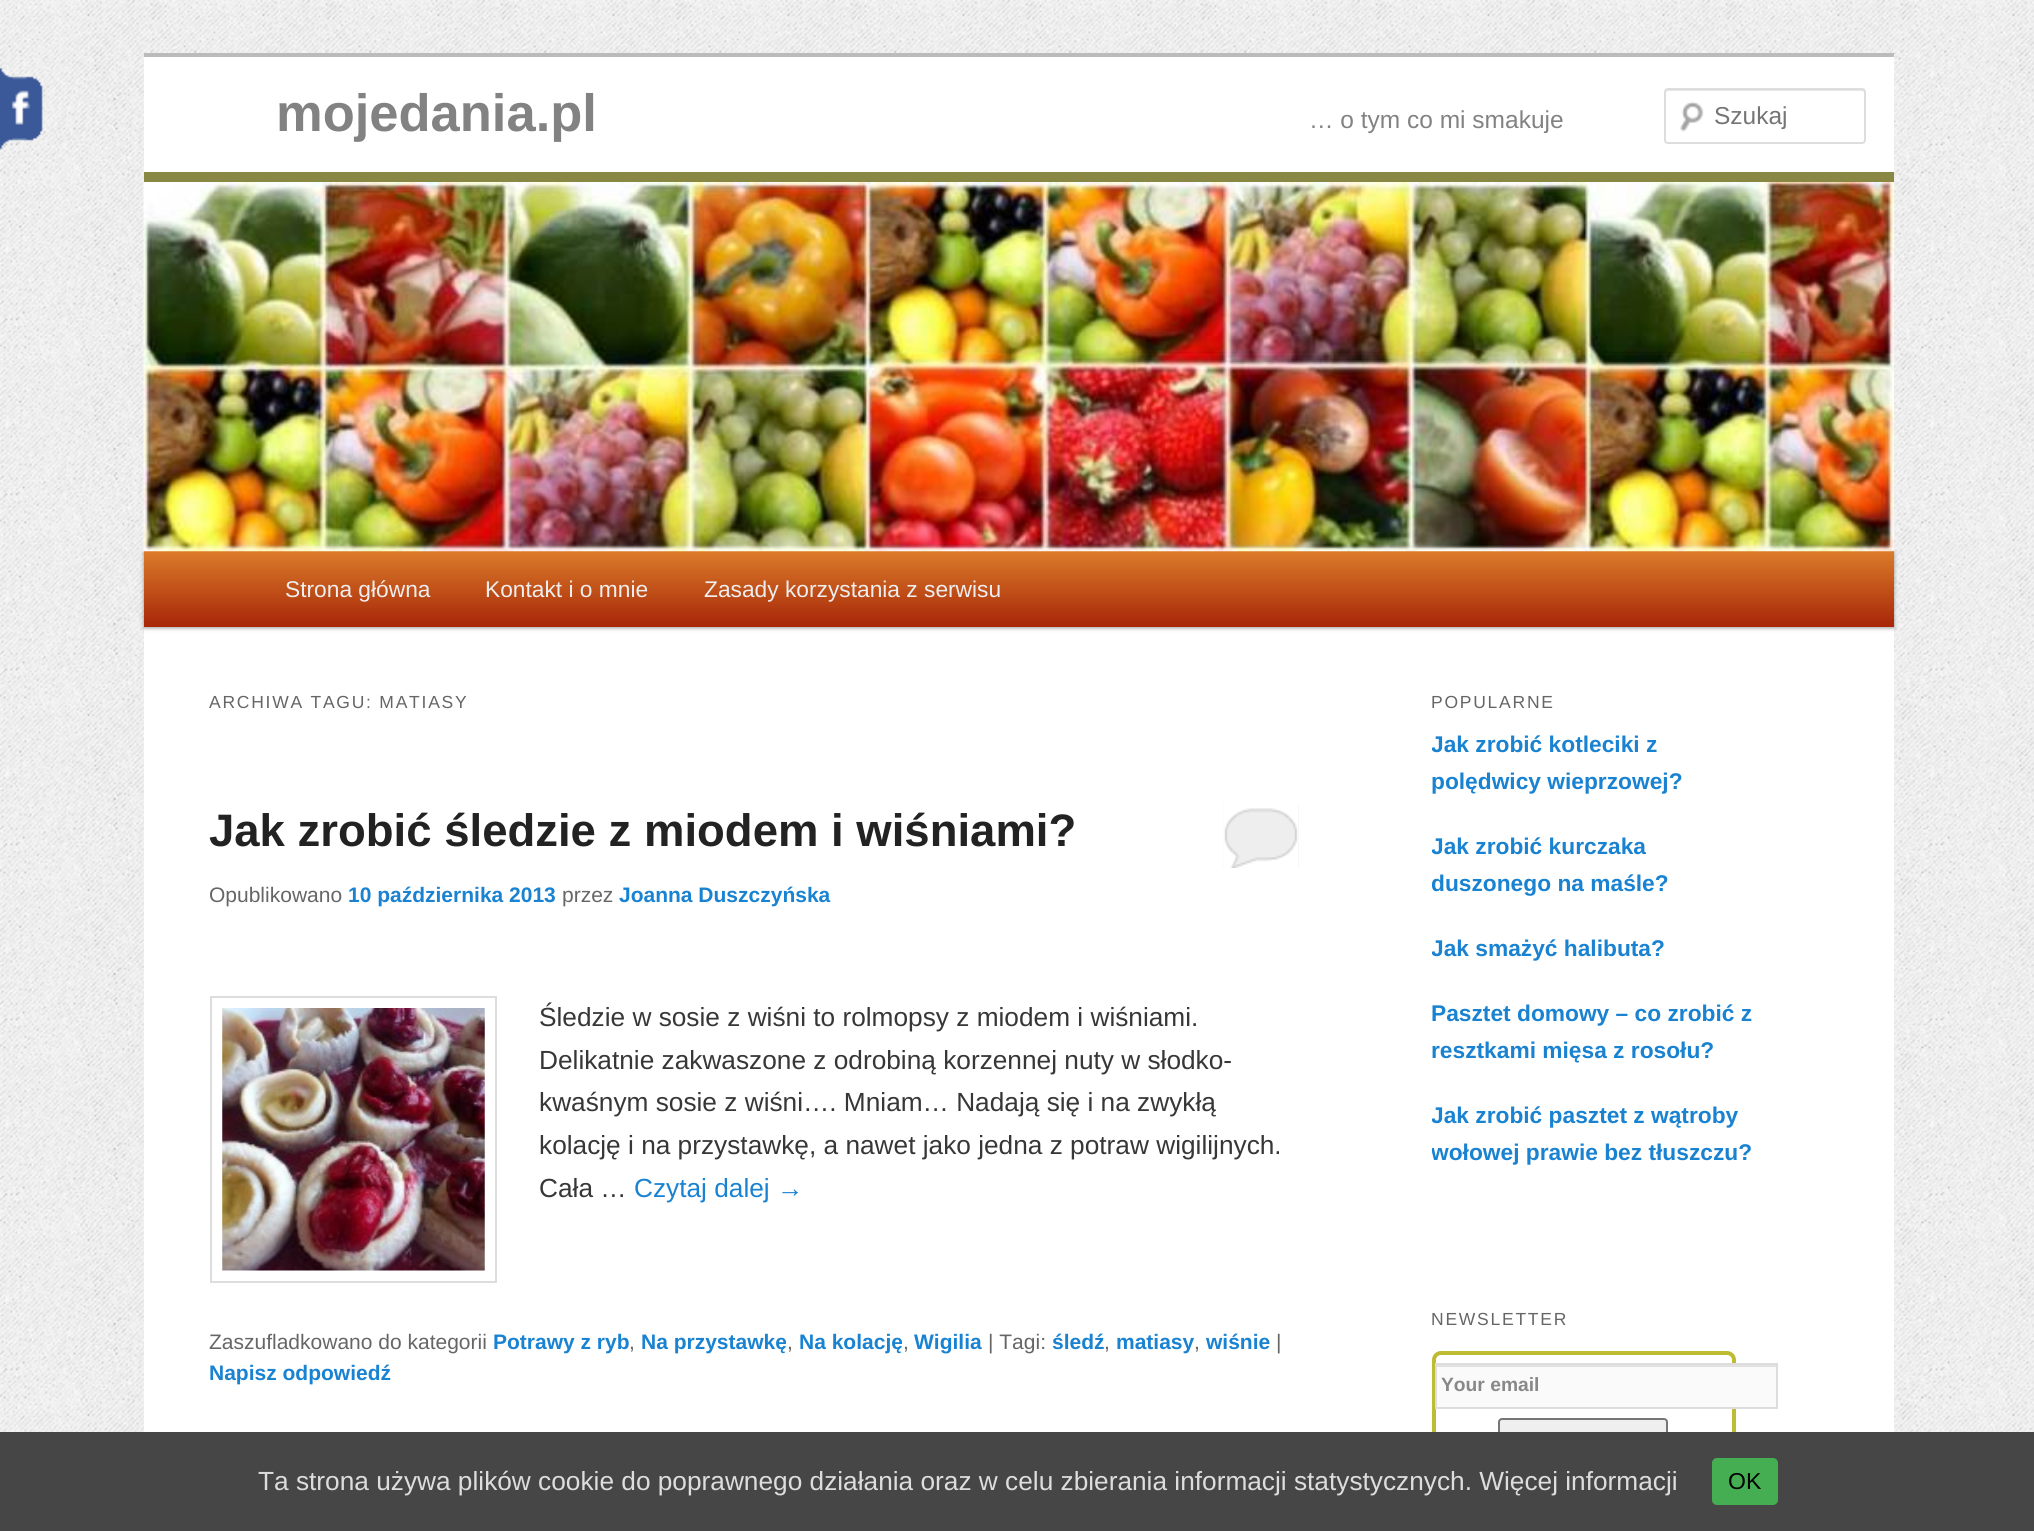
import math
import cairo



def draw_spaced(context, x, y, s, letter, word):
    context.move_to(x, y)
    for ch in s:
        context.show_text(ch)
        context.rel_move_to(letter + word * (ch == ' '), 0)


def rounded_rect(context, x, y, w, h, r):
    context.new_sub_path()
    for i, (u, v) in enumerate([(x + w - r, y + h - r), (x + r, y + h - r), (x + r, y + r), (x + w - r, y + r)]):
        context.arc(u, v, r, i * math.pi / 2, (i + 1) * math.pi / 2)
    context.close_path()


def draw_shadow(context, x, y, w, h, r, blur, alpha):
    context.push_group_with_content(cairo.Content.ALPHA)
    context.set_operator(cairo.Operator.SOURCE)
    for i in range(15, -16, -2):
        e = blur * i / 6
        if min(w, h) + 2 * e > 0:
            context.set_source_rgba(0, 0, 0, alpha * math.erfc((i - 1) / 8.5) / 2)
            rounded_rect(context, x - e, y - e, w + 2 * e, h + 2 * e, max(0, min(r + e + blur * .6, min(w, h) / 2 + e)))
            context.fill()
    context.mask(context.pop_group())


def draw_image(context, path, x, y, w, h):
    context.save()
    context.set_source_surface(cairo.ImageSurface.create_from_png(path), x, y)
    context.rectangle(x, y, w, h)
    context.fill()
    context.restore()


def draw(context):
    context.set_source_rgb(1, 1, 1)
    context.paint()
    draw_image(context, "images/1.png", 0, 0, 2034, 1432)
    draw_image(context, "images/2.png", 0, 67, 43, 83)
    context.set_source_rgb(1, 1, 1)
    context.rectangle(144, 57, 1750, 1375)
    context.fill()
    context.set_source_rgb(187 / 255, 187 / 255, 187 / 255)
    context.rectangle(144, 53, 1750, 4)
    context.fill()
    draw_image(context, "images/3.png", 1679, 101, 25, 31)
    context.set_source_rgb(230 / 255, 230 / 255, 230 / 255)
    context.new_path()
    context.move_to(1668, 91)
    context.line_to(1862, 91)
    context.line_to(1864, 92)
    context.line_to(1864, 93)
    context.curve_to(1864, 91, 1864, 89, 1862, 89)
    context.line_to(1668, 89)
    context.curve_to(1666, 89, 1666, 91, 1666, 93)
    context.curve_to(1666, 92, 1667, 91, 1668, 91)
    context.close_path()
    context.fill()
    rounded_rect(context, 1665, 89, 200, 54, 3)
    context.set_source_rgb(221 / 255, 221 / 255, 221 / 255)
    context.stroke()
    context.set_source_rgb(136 / 255, 136 / 255, 68 / 255)
    context.rectangle(144, 172, 1750, 10)
    context.fill()
    context.set_source_rgb(0, 0, 0)
    draw_shadow(context, 144, 553, 1750, 75, 0, 2, 0.4)
    gradient = cairo.LinearGradient(1019, 551, 1019, 627)
    gradient.add_color_stop_rgba(0, 219 / 255, 124 / 255, 42 / 255, 1)
    gradient.add_color_stop_rgba(1, 167 / 255, 38 / 255, 8 / 255, 1)
    context.set_source(gradient)
    context.rectangle(144, 551, 1750, 76)
    context.fill()
    draw_image(context, "images/4.png", 143, 182, 1751, 370)
    context.set_source_rgb(238 / 255, 238 / 255, 238 / 255)
    context.rectangle(1223, 805, 76, 63)
    context.fill()
    draw_image(context, "images/5.png", 1223, 805, 76, 63)
    context.rectangle(211, 997, 285, 285)
    context.set_source_rgb(221 / 255, 221 / 255, 221 / 255)
    context.stroke()
    draw_image(context, "images/6.png", 222, 1008, 263, 263)
    rounded_rect(context, 1434, 1353, 300, 106, 7)
    context.set_source_rgb(190 / 255, 188 / 255, 51 / 255)
    context.set_line_width(4)
    context.stroke()
    context.set_source_rgb(250 / 255, 250 / 255, 250 / 255)
    context.rectangle(1437, 1367, 339, 40)
    context.fill()
    context.set_source_rgb(225 / 255, 225 / 255, 225 / 255)
    context.rectangle(1437, 1365, 339, 2)
    context.fill()
    context.rectangle(1436, 1364, 341, 44)
    context.set_source_rgb(221 / 255, 221 / 255, 221 / 255)
    context.set_line_width(2)
    context.stroke()
    context.set_source_rgb(239 / 255, 239 / 255, 239 / 255)
    rounded_rect(context, 1499, 1419, 168, 38, 3)
    context.fill_preserve()
    context.set_source_rgb(118 / 255, 118 / 255, 118 / 255)
    context.stroke()
    context.set_source_rgb(70 / 255, 70 / 255, 70 / 255)
    context.rectangle(0, 1432, 2034, 99)
    context.fill()
    context.set_source_rgb(69 / 255, 174 / 255, 82 / 255)
    rounded_rect(context, 1712, 1458, 66, 47, 5)
    context.fill()
    context.select_font_face("Liberation Sans", cairo.FontSlant.NORMAL, cairo.FontWeight.BOLD)
    context.set_font_size(52.5)
    context.set_source_rgb(130 / 255, 130 / 255, 130 / 255)
    context.move_to(276, 131)
    context.show_text("mojedania.pl")
    context.select_font_face("Liberation Sans")
    context.set_font_size(24.5)
    context.move_to(1309, 128)
    context.show_text("… o tym co mi smakuje")
    context.set_source_rgb(117 / 255, 117 / 255, 117 / 255)
    context.move_to(1714, 124)
    context.show_text("Szukaj")
    context.set_font_size(22.75)
    context.set_source_rgb(238 / 255, 238 / 255, 238 / 255)
    context.move_to(285, 597)
    context.show_text("Strona główna")
    context.move_to(485, 597)
    context.show_text("Kontakt i o mnie")
    context.move_to(704, 597)
    context.show_text("Zasady korzystania z serwisu")
    context.set_font_size(17.5)
    context.set_source_rgb(102 / 255, 102 / 255, 102 / 255)
    draw_spaced(context, 209, 708, "ARCHIWA TAGU: MATIASY", 1.75, 0)
    context.select_font_face("Liberation Sans", cairo.FontSlant.NORMAL, cairo.FontWeight.BOLD)
    context.set_font_size(45.5)
    context.set_source_rgb(34 / 255, 34 / 255, 34 / 255)
    context.move_to(209, 846)
    context.show_text("Jak zrobić śledzie z miodem i wiśniami?")
    context.select_font_face("Liberation Sans")
    context.set_font_size(21)
    context.set_source_rgb(102 / 255, 102 / 255, 102 / 255)
    context.move_to(209, 902)
    context.show_text("Opublikowano")
    context.select_font_face("Liberation Sans", cairo.FontSlant.NORMAL, cairo.FontWeight.BOLD)
    context.set_source_rgb(25 / 255, 130 / 255, 209 / 255)
    context.move_to(348, 902)
    context.show_text("10 października 2013")
    context.select_font_face("Liberation Sans")
    context.set_source_rgb(102 / 255, 102 / 255, 102 / 255)
    context.move_to(562, 902)
    context.show_text("przez")
    context.select_font_face("Liberation Sans", cairo.FontSlant.NORMAL, cairo.FontWeight.BOLD)
    context.set_source_rgb(25 / 255, 130 / 255, 209 / 255)
    context.move_to(619, 902)
    context.show_text("Joanna Duszczyńska")
    context.select_font_face("Liberation Sans")
    context.set_font_size(26.25)
    context.set_source_rgb(55 / 255, 55 / 255, 55 / 255)
    context.move_to(539, 1026)
    context.show_text("Śledzie w sosie z wiśni to rolmopsy z miodem i wiśniami.")
    context.move_to(539, 1069)
    context.show_text("Delikatnie zakwaszone z odrobiną korzennej nuty w słodko-")
    context.move_to(539, 1111)
    context.show_text("kwaśnym sosie z wiśni…. Mniam… Nadają się i na zwykłą")
    context.move_to(539, 1154)
    context.show_text("kolację i na przystawkę, a nawet jako jedna z potraw wigilijnych.")
    context.move_to(539, 1197)
    context.show_text("Cała …")
    context.set_source_rgb(25 / 255, 130 / 255, 209 / 255)
    context.move_to(634, 1197)
    context.show_text("Czytaj dalej →")
    context.set_font_size(21)
    context.set_source_rgb(102 / 255, 102 / 255, 102 / 255)
    context.move_to(209, 1349)
    context.show_text("Zaszufladkowano do kategorii")
    context.select_font_face("Liberation Sans", cairo.FontSlant.NORMAL, cairo.FontWeight.BOLD)
    context.set_source_rgb(25 / 255, 130 / 255, 209 / 255)
    context.move_to(493, 1349)
    context.show_text("Potrawy z ryb")
    context.select_font_face("Liberation Sans")
    context.set_source_rgb(102 / 255, 102 / 255, 102 / 255)
    context.move_to(629, 1349)
    context.show_text(",")
    context.select_font_face("Liberation Sans", cairo.FontSlant.NORMAL, cairo.FontWeight.BOLD)
    context.set_source_rgb(25 / 255, 130 / 255, 209 / 255)
    context.move_to(641, 1349)
    context.show_text("Na przystawkę")
    context.select_font_face("Liberation Sans")
    context.set_source_rgb(102 / 255, 102 / 255, 102 / 255)
    context.move_to(787, 1349)
    context.show_text(",")
    context.select_font_face("Liberation Sans", cairo.FontSlant.NORMAL, cairo.FontWeight.BOLD)
    context.set_source_rgb(25 / 255, 130 / 255, 209 / 255)
    context.move_to(799, 1349)
    context.show_text("Na kolację")
    context.select_font_face("Liberation Sans")
    context.set_source_rgb(102 / 255, 102 / 255, 102 / 255)
    context.move_to(903, 1349)
    context.show_text(",")
    context.select_font_face("Liberation Sans", cairo.FontSlant.NORMAL, cairo.FontWeight.BOLD)
    context.set_source_rgb(25 / 255, 130 / 255, 209 / 255)
    context.move_to(914, 1349)
    context.show_text("Wigilia")
    context.select_font_face("Liberation Sans")
    context.set_source_rgb(102 / 255, 102 / 255, 102 / 255)
    context.move_to(988, 1349)
    context.show_text("| Tagi:")
    context.select_font_face("Liberation Sans", cairo.FontSlant.NORMAL, cairo.FontWeight.BOLD)
    context.set_source_rgb(25 / 255, 130 / 255, 209 / 255)
    context.move_to(1052, 1349)
    context.show_text("śledź")
    context.select_font_face("Liberation Sans")
    context.set_source_rgb(102 / 255, 102 / 255, 102 / 255)
    context.move_to(1104, 1349)
    context.show_text(",")
    context.select_font_face("Liberation Sans", cairo.FontSlant.NORMAL, cairo.FontWeight.BOLD)
    context.set_source_rgb(25 / 255, 130 / 255, 209 / 255)
    context.move_to(1116, 1349)
    context.show_text("matiasy")
    context.select_font_face("Liberation Sans")
    context.set_source_rgb(102 / 255, 102 / 255, 102 / 255)
    context.move_to(1194, 1349)
    context.show_text(",")
    context.select_font_face("Liberation Sans", cairo.FontSlant.NORMAL, cairo.FontWeight.BOLD)
    context.set_source_rgb(25 / 255, 130 / 255, 209 / 255)
    context.move_to(1206, 1349)
    context.show_text("wiśnie")
    context.select_font_face("Liberation Sans")
    context.set_source_rgb(102 / 255, 102 / 255, 102 / 255)
    context.move_to(1276, 1349)
    context.show_text("|")
    context.select_font_face("Liberation Sans", cairo.FontSlant.NORMAL, cairo.FontWeight.BOLD)
    context.set_source_rgb(25 / 255, 130 / 255, 209 / 255)
    context.move_to(209, 1380)
    context.show_text("Napisz odpowiedź")
    context.select_font_face("Liberation Sans")
    context.set_font_size(17.5)
    context.set_source_rgb(102 / 255, 102 / 255, 102 / 255)
    draw_spaced(context, 1431, 708, "POPULARNE", 1.75, 0)
    context.save()
    context.rectangle(1432, 726, 329, 74)
    context.clip()
    context.select_font_face("Liberation Sans", cairo.FontSlant.NORMAL, cairo.FontWeight.BOLD)
    context.set_font_size(22.75)
    context.set_source_rgb(25 / 255, 130 / 255, 209 / 255)
    context.move_to(1431, 752)
    context.show_text("Jak zrobić kotleciki z")
    context.restore()
    context.select_font_face("Liberation Sans", cairo.FontSlant.NORMAL, cairo.FontWeight.BOLD)
    context.set_font_size(22.75)
    context.set_source_rgb(25 / 255, 130 / 255, 209 / 255)
    context.move_to(1431, 789)
    context.show_text("polędwicy wieprzowej?")
    context.save()
    context.rectangle(1432, 828, 329, 73)
    context.clip()
    context.move_to(1431, 854)
    context.show_text("Jak zrobić kurczaka")
    context.move_to(1431, 891)
    context.show_text("duszonego na maśle?")
    context.restore()
    context.save()
    context.rectangle(1432, 929, 329, 37)
    context.clip()
    context.move_to(1431, 956)
    context.show_text("Jak smażyć halibuta?")
    context.restore()
    context.move_to(1431, 1021)
    context.show_text("Pasztet domowy – co zrobić z")
    context.move_to(1431, 1058)
    context.show_text("resztkami mięsa z rosołu?")
    context.save()
    context.rectangle(1432, 1097, 329, 74)
    context.clip()
    context.move_to(1431, 1123)
    context.show_text("Jak zrobić pasztet z wątroby")
    context.move_to(1431, 1160)
    context.show_text("wołowej prawie bez tłuszczu?")
    context.restore()
    context.select_font_face("Liberation Sans")
    context.set_font_size(17.5)
    context.set_source_rgb(102 / 255, 102 / 255, 102 / 255)
    draw_spaced(context, 1431, 1325, "NEWSLETTER", 1.75, 0)
    context.select_font_face("Liberation Sans", cairo.FontSlant.NORMAL, cairo.FontWeight.BOLD)
    context.set_font_size(19.25)
    context.set_source_rgb(136 / 255, 136 / 255, 136 / 255)
    context.move_to(1441, 1391)
    context.show_text("Your email")
    context.select_font_face("Liberation Sans")
    context.set_font_size(26.25)
    context.set_source_rgb(221 / 255, 221 / 255, 221 / 255)
    context.move_to(258, 1490)
    context.show_text("Ta strona używa plików cookie do poprawnego działania oraz w celu zbierania informacji statystycznych. Więcej informacji")
    context.set_font_size(23)
    context.set_source_rgb(0, 0, 0)
    context.move_to(1728, 1489)
    context.show_text("OK")


surface = cairo.ImageSurface(cairo.Format.RGB24, 2034, 1531)
context = cairo.Context(surface)
options = cairo.FontOptions()
options.set_hint_metrics(cairo.HintMetrics.OFF)
options.set_hint_style(cairo.HintStyle.NONE)
context.set_font_options(options)
context.set_miter_limit(4)
draw(context)
surface.write_to_png("out.png")
